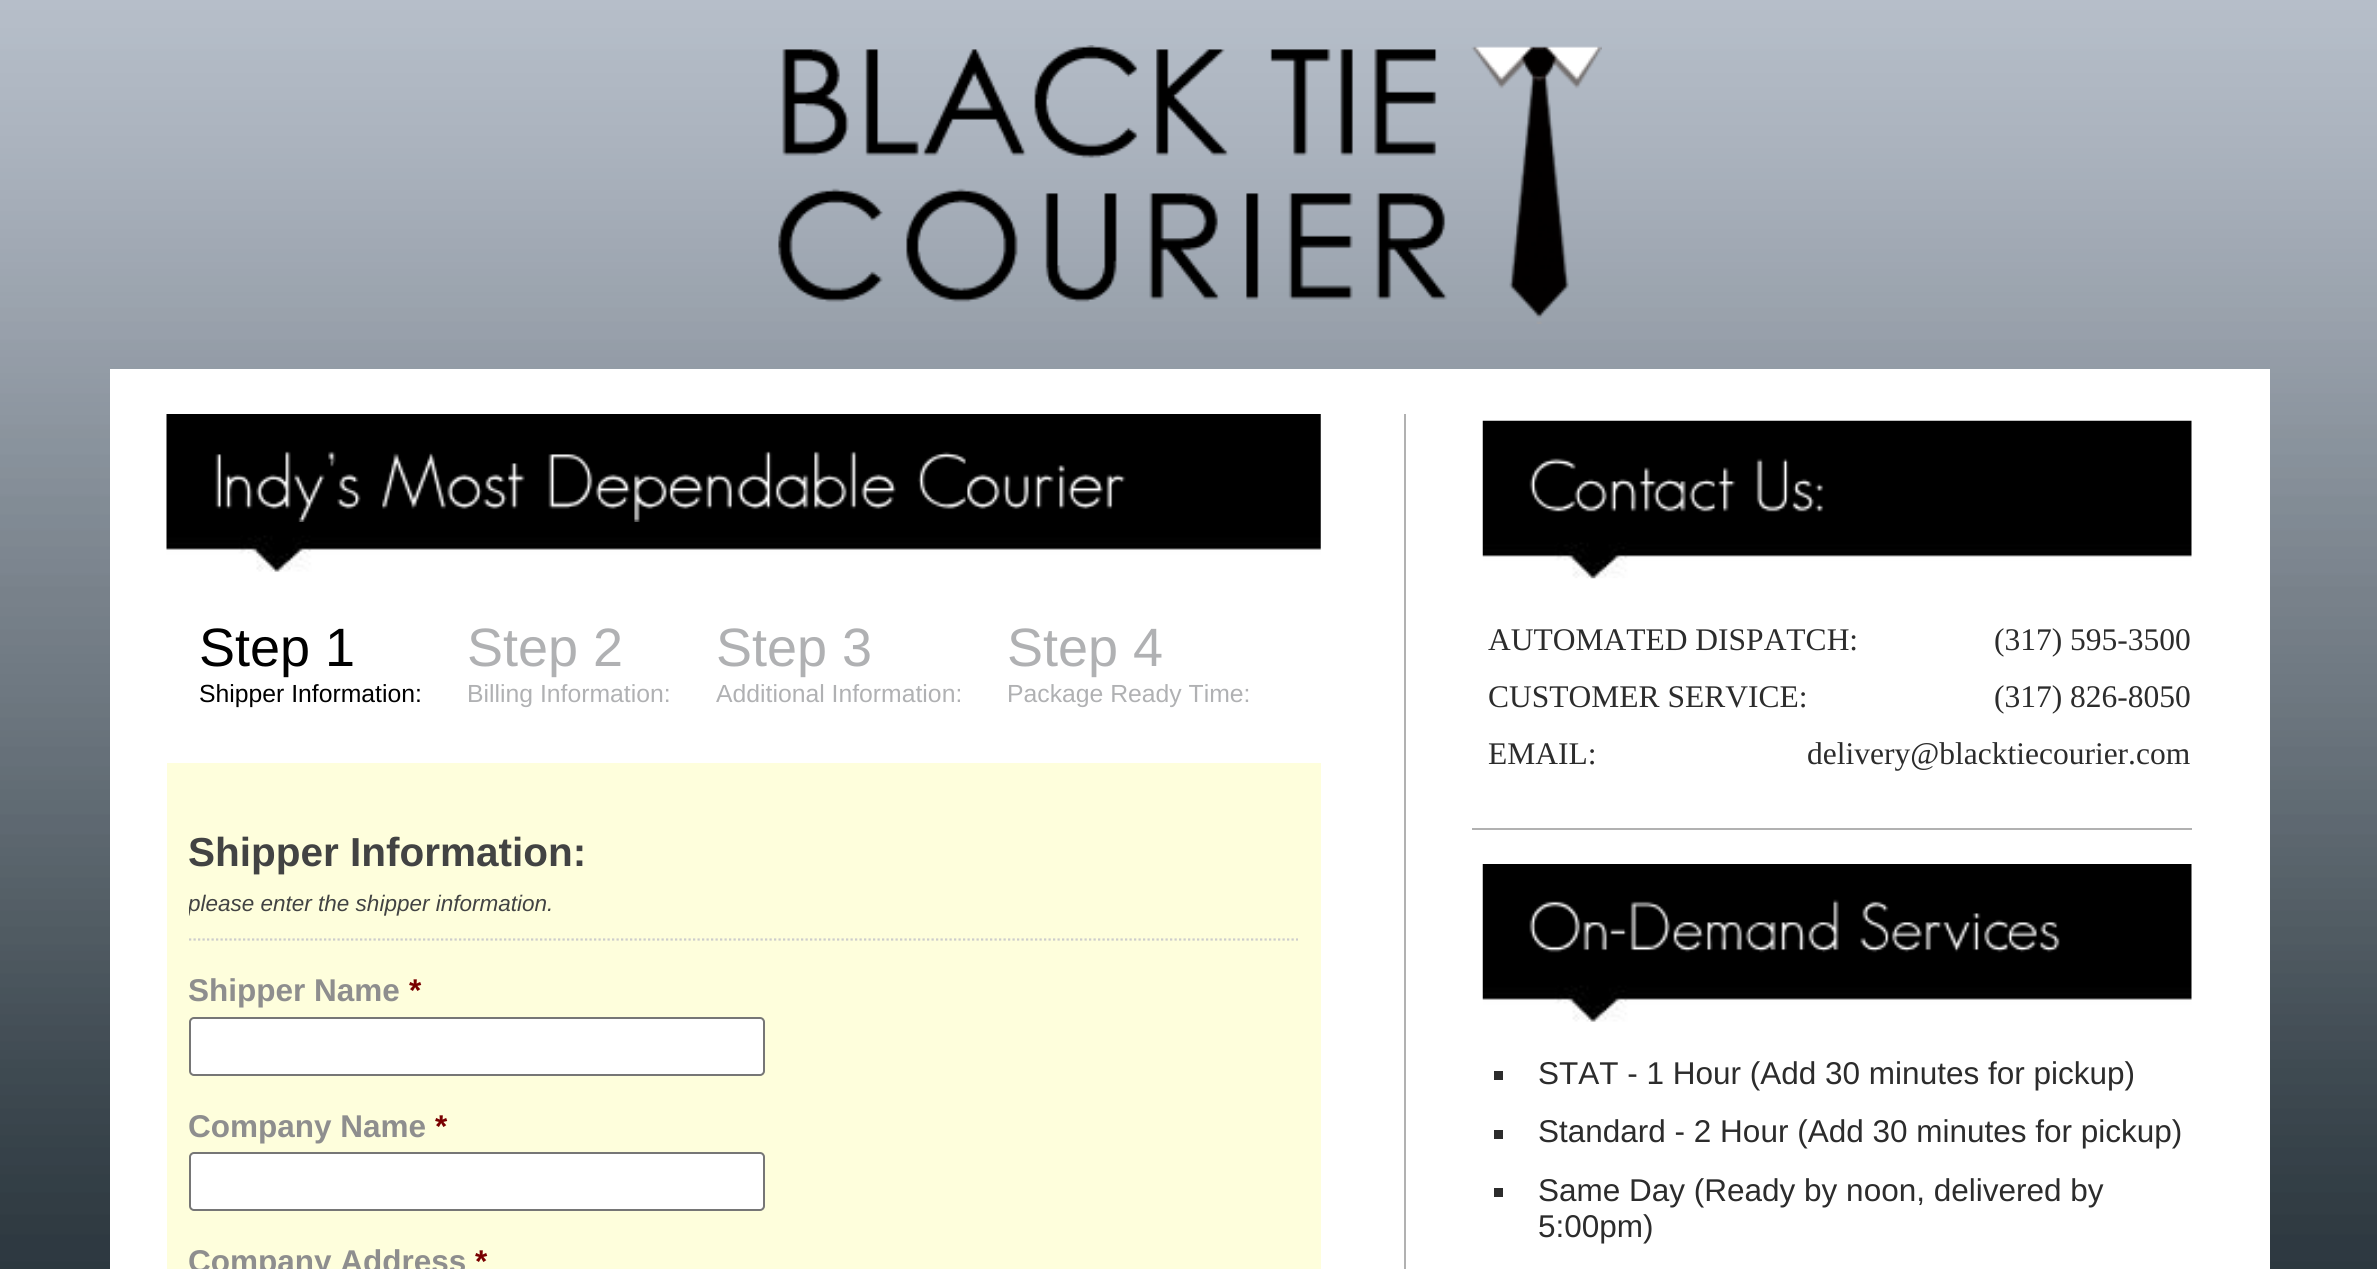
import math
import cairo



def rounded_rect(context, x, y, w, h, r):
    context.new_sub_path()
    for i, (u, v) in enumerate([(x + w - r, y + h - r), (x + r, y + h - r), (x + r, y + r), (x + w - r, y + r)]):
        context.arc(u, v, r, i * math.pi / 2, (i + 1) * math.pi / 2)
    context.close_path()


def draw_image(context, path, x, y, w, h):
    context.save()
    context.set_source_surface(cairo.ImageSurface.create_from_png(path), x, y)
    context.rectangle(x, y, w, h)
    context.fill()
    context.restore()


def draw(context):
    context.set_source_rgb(1, 1, 1)
    context.paint()
    draw_image(context, "images/1.png", 0, 0, 2377, 1269)
    draw_image(context, "images/2.png", 778, 45, 824, 279)
    context.set_source_rgb(1, 1, 1)
    context.rectangle(110, 369, 2160, 900)
    context.fill()
    context.set_source_rgb(177 / 255, 177 / 255, 177 / 255)
    context.rectangle(1404, 414, 2, 855)
    context.fill()
    draw_image(context, "images/3.png", 166, 414, 1155, 158)
    draw_image(context, "images/4.png", 215, 451, 146, 71)
    draw_image(context, "images/5.png", 382, 452, 143, 58)
    draw_image(context, "images/6.png", 548, 451, 348, 71)
    draw_image(context, "images/7.png", 917, 451, 209, 59)
    context.set_source_rgb(254 / 255, 254 / 255, 220 / 255)
    context.rectangle(167, 763, 1154, 506)
    context.fill()
    context.new_path()
    context.move_to(189, 939.5)
    context.line_to(1298, 939.5)
    context.set_source_rgb(204 / 255, 204 / 255, 204 / 255)
    context.set_line_width(2.2)
    context.set_dash([2.25, 2.25])
    context.stroke()
    context.set_source_rgb(1, 1, 1)
    rounded_rect(context, 190, 1018, 574, 57, 4)
    context.fill_preserve()
    context.set_source_rgb(118 / 255, 118 / 255, 118 / 255)
    context.set_line_width(2)
    context.set_dash([])
    context.stroke()
    context.set_source_rgb(1, 1, 1)
    rounded_rect(context, 190, 1153, 574, 57, 4)
    context.fill_preserve()
    context.set_source_rgb(118 / 255, 118 / 255, 118 / 255)
    context.stroke()
    context.set_source_rgb(177 / 255, 177 / 255, 177 / 255)
    context.rectangle(1472, 828, 720, 2)
    context.fill()
    draw_image(context, "images/8.png", 1482, 420, 710, 159)
    draw_image(context, "images/9.png", 1529, 458, 207, 54)
    draw_image(context, "images/10.png", 1756, 458, 68, 54)
    draw_image(context, "images/11.png", 1482, 864, 710, 158)
    draw_image(context, "images/12.png", 1529, 899, 310, 54)
    draw_image(context, "images/13.png", 1860, 901, 200, 52)
    context.set_source_rgb(44 / 255, 44 / 255, 44 / 255)
    context.rectangle(1494, 1071, 9, 9)
    context.fill()
    context.rectangle(1494, 1130, 9, 9)
    context.fill()
    context.rectangle(1494, 1188, 9, 9)
    context.fill()
    context.select_font_face("Liberation Sans")
    context.set_font_size(54)
    context.set_source_rgb(0, 0, 0)
    context.move_to(199, 666)
    context.show_text("Step 1")
    context.set_font_size(24.75)
    context.move_to(199, 702)
    context.show_text("Shipper Information:")
    context.set_font_size(54)
    context.set_source_rgb(176 / 255, 177 / 255, 179 / 255)
    context.move_to(467, 666)
    context.show_text("Step 2")
    context.set_font_size(24.75)
    context.move_to(467, 702)
    context.show_text("Billing Information:")
    context.set_font_size(54)
    context.move_to(716, 666)
    context.show_text("Step 3")
    context.set_font_size(24.75)
    context.move_to(716, 702)
    context.show_text("Additional Information:")
    context.set_font_size(54)
    context.move_to(1007, 666)
    context.show_text("Step 4")
    context.set_font_size(24.75)
    context.move_to(1007, 702)
    context.show_text("Package Ready Time:")
    context.select_font_face("Liberation Sans", cairo.FontSlant.NORMAL, cairo.FontWeight.BOLD)
    context.set_font_size(40.5)
    context.set_source_rgb(66 / 255, 67 / 255, 67 / 255)
    context.move_to(188, 866)
    context.show_text("Shipper Information:")
    context.save()
    context.rectangle(189, 830, 1109, 108)
    context.clip()
    context.select_font_face("Liberation Sans", cairo.FontSlant.ITALIC)
    context.set_font_size(22.5)
    context.move_to(188, 911)
    context.show_text("please enter the shipper information.")
    context.restore()
    context.set_font_size(31.5)
    context.set_source_rgb(142 / 255, 142 / 255, 142 / 255)
    context.move_to(188, 1001)
    context.show_text("Shipper Name")
    context.set_source_rgb(121 / 255, 0, 0)
    context.move_to(409, 1001)
    context.show_text("*")
    context.set_source_rgb(142 / 255, 142 / 255, 142 / 255)
    context.move_to(188, 1137)
    context.show_text("Company Name")
    context.set_source_rgb(121 / 255, 0, 0)
    context.move_to(435, 1137)
    context.show_text("*")
    context.set_source_rgb(142 / 255, 142 / 255, 142 / 255)
    context.move_to(188, 1272)
    context.show_text("Company Address")
    context.set_source_rgb(121 / 255, 0, 0)
    context.move_to(475, 1272)
    context.show_text("*")
    context.select_font_face("Liberation Serif")
    context.set_source_rgb(44 / 255, 44 / 255, 44 / 255)
    context.move_to(1488, 650)
    context.show_text("AUTOMATED DISPATCH:")
    context.move_to(1994, 650)
    context.show_text("(317) 595-3500")
    context.move_to(1488, 707)
    context.show_text("CUSTOMER SERVICE:")
    context.move_to(1994, 707)
    context.show_text("(317) 826-8050")
    context.move_to(1488, 764)
    context.show_text("EMAIL:")
    context.move_to(1807, 764)
    context.show_text("delivery@blacktiecourier.com")
    context.select_font_face("Liberation Sans")
    context.move_to(1538, 1084)
    context.show_text("STAT - 1 Hour (Add 30 minutes for pickup)")
    context.move_to(1538, 1142)
    context.show_text("Standard - 2 Hour (Add 30 minutes for pickup)")
    context.move_to(1538, 1201)
    context.show_text("Same Day (Ready by noon, delivered by")
    context.move_to(1538, 1237)
    context.show_text("5:00pm)")


surface = cairo.ImageSurface(cairo.Format.RGB24, 2377, 1269)
context = cairo.Context(surface)
options = cairo.FontOptions()
options.set_hint_metrics(cairo.HintMetrics.OFF)
options.set_hint_style(cairo.HintStyle.NONE)
context.set_font_options(options)
context.set_miter_limit(4)
draw(context)
surface.write_to_png("out.png")
